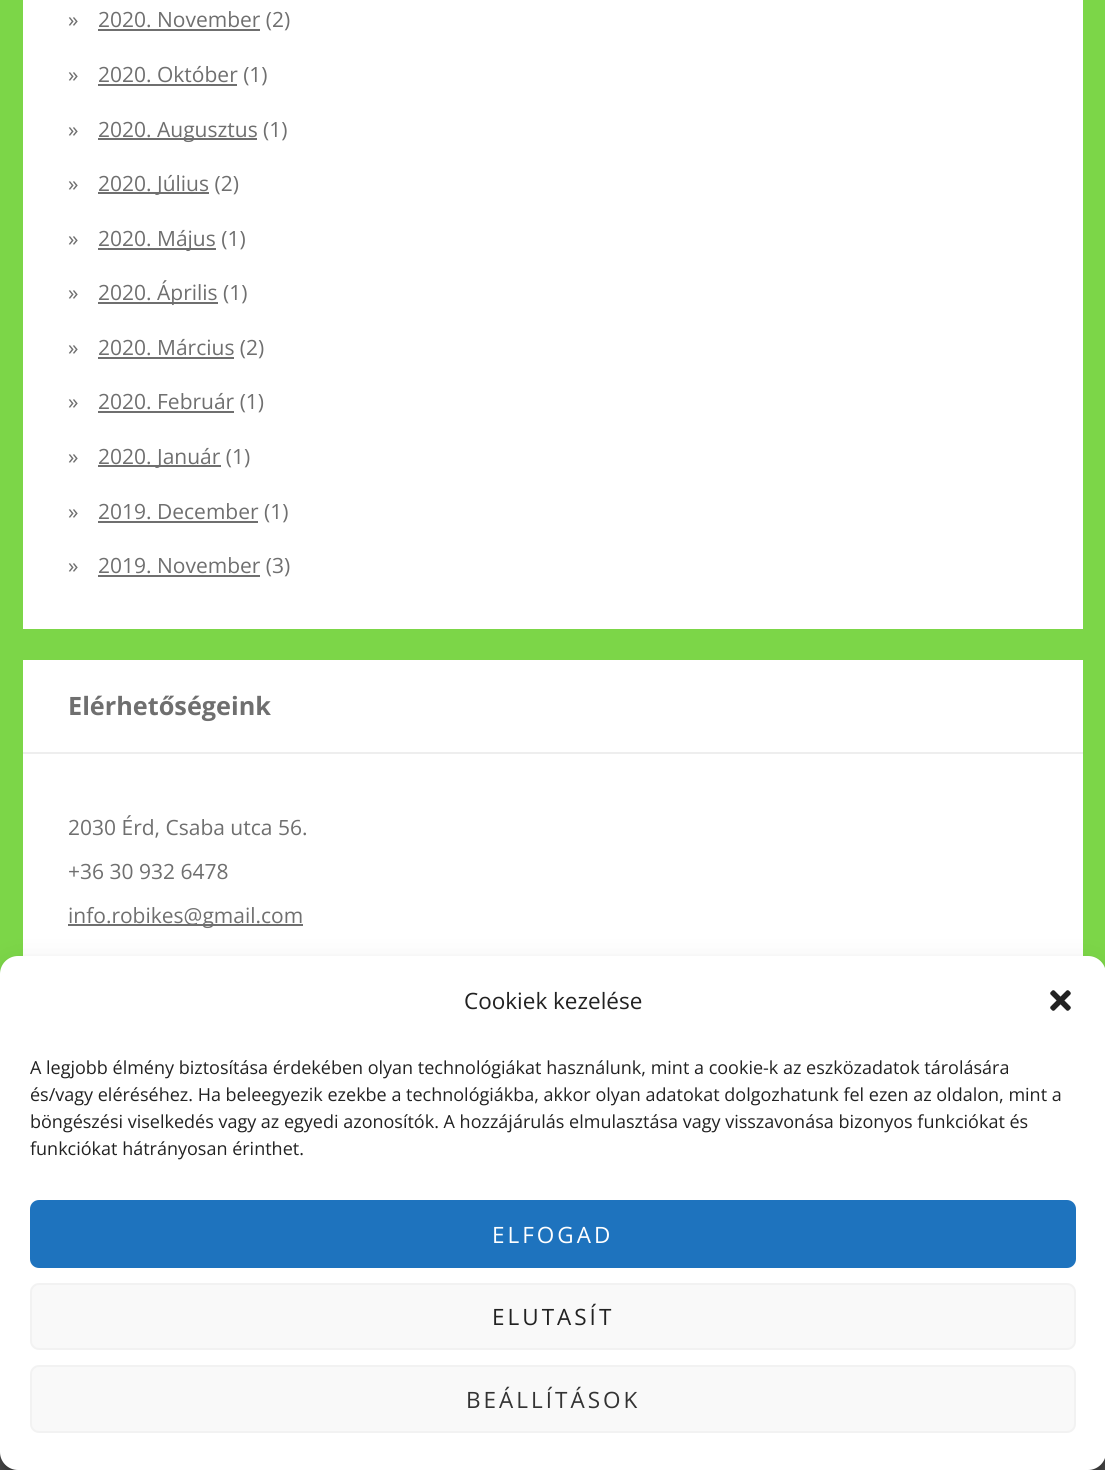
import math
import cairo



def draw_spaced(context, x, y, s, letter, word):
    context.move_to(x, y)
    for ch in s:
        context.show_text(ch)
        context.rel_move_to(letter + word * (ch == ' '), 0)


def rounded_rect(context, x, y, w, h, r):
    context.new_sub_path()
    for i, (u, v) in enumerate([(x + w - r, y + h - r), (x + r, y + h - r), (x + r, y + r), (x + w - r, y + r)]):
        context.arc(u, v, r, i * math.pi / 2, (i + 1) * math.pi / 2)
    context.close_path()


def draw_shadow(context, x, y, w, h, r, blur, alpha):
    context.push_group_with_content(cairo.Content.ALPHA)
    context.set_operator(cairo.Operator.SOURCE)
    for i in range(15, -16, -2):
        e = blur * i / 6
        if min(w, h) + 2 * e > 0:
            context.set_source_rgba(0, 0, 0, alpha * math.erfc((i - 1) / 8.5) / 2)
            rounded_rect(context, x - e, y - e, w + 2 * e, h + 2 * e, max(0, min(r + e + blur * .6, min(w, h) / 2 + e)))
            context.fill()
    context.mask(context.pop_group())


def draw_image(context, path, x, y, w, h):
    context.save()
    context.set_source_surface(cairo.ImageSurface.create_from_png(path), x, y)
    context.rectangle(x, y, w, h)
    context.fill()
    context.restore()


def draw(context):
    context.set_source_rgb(124 / 255, 214 / 255, 72 / 255)
    context.paint()
    context.set_source_rgb(1, 1, 1)
    context.rectangle(23, 0, 1060, 629)
    context.fill()
    context.set_source_rgb(111 / 255, 111 / 255, 111 / 255)
    context.rectangle(98, 29, 162, 2)
    context.fill()
    context.rectangle(98, 84, 139, 2)
    context.fill()
    context.rectangle(98, 138, 159, 2)
    context.fill()
    context.rectangle(98, 192, 111, 2)
    context.fill()
    context.rectangle(98, 248, 118, 2)
    context.fill()
    context.rectangle(98, 302, 120, 2)
    context.fill()
    context.rectangle(98, 357, 136, 2)
    context.fill()
    context.rectangle(98, 411, 136, 2)
    context.fill()
    context.rectangle(98, 465, 123, 2)
    context.fill()
    context.rectangle(98, 521, 160, 2)
    context.fill()
    context.rectangle(98, 575, 162, 2)
    context.fill()
    context.set_source_rgb(1, 1, 1)
    context.rectangle(23, 660, 1060, 296)
    context.fill()
    context.set_source_rgb(238 / 255, 238 / 255, 238 / 255)
    context.rectangle(23, 752, 1060, 2)
    context.fill()
    context.set_source_rgb(111 / 255, 111 / 255, 111 / 255)
    context.rectangle(68, 924, 235, 2)
    context.fill()
    context.set_source_rgb(79 / 255, 79 / 255, 79 / 255)
    context.rectangle(0, 1452, 1105, 18)
    context.fill()
    context.set_source_rgb(0, 0, 0)
    draw_shadow(context, 0, 965, 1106, 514, 18, 4.5, 0.23)
    draw_shadow(context, 0, 971, 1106, 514, 18, 15, 0.19)
    context.set_source_rgb(1, 1, 1)
    rounded_rect(context, 0, 956, 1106, 514, 18)
    context.fill()
    draw_image(context, "images/1.png", 1050, 990, 21, 21)
    context.set_source_rgb(30 / 255, 115 / 255, 190 / 255)
    rounded_rect(context, 31, 1201, 1044, 66, 8)
    context.fill_preserve()
    context.stroke()
    context.set_source_rgb(249 / 255, 249 / 255, 249 / 255)
    rounded_rect(context, 31, 1284, 1044, 65, 8)
    context.fill_preserve()
    context.set_source_rgb(242 / 255, 242 / 255, 242 / 255)
    context.stroke()
    context.set_source_rgb(249 / 255, 249 / 255, 249 / 255)
    rounded_rect(context, 31, 1366, 1044, 66, 8)
    context.fill_preserve()
    context.set_source_rgb(242 / 255, 242 / 255, 242 / 255)
    context.stroke()
    context.select_font_face("Open Sans")
    context.set_font_size(21)
    context.set_source_rgb(111 / 255, 111 / 255, 111 / 255)
    context.move_to(68, 27)
    context.show_text("»")
    context.move_to(98, 27)
    context.show_text("2020. November (2)")
    context.move_to(68, 82)
    context.show_text("»")
    context.move_to(98, 82)
    context.show_text("2020. Október (1)")
    context.move_to(68, 137)
    context.show_text("»")
    context.move_to(98, 137)
    context.show_text("2020. Augusztus (1)")
    context.move_to(68, 191)
    context.show_text("»")
    context.move_to(98, 191)
    context.show_text("2020. Július (2)")
    context.move_to(68, 246)
    context.show_text("»")
    context.move_to(98, 246)
    context.show_text("2020. Május (1)")
    context.move_to(68, 300)
    context.show_text("»")
    context.move_to(98, 300)
    context.show_text("2020. Április (1)")
    context.move_to(68, 355)
    context.show_text("»")
    context.move_to(98, 355)
    context.show_text("2020. Március (2)")
    context.move_to(68, 409)
    context.show_text("»")
    context.move_to(98, 409)
    context.show_text("2020. Február (1)")
    context.move_to(68, 464)
    context.show_text("»")
    context.move_to(98, 464)
    context.show_text("2020. Január (1)")
    context.move_to(68, 519)
    context.show_text("»")
    context.move_to(98, 519)
    context.show_text("2019. December (1)")
    context.move_to(68, 573)
    context.show_text("»")
    context.move_to(98, 573)
    context.show_text("2019. November (3)")
    context.select_font_face("Open Sans", cairo.FontSlant.NORMAL, cairo.FontWeight.BOLD)
    context.set_font_size(25.25)
    context.move_to(68, 715)
    context.show_text("Elérhetőségeink")
    context.select_font_face("Open Sans")
    context.set_font_size(21)
    context.move_to(68, 835)
    context.show_text("2030 Érd, Csaba utca 56.")
    context.move_to(68, 879)
    context.show_text("+36 30 932 6478")
    context.move_to(68, 923)
    context.show_text("info.robikes@gmail.com")
    context.set_font_size(22.5)
    context.set_source_rgb(34 / 255, 34 / 255, 34 / 255)
    context.move_to(464, 1009)
    context.show_text("Cookiek kezelése")
    context.set_font_size(18)
    context.move_to(30, 1074)
    context.show_text("A legjobb élmény biztosítása érdekében olyan technológiákat használunk, mint a cookie-k az eszközadatok tárolására")
    context.move_to(30, 1101)
    context.show_text("és/vagy eléréséhez. Ha beleegyezik ezekbe a technológiákba, akkor olyan adatokat dolgozhatunk fel ezen az oldalon, mint a")
    context.move_to(30, 1128)
    context.show_text("böngészési viselkedés vagy az egyedi azonosítók. A hozzájárulás elmulasztása vagy visszavonása bizonyos funkciókat és")
    context.move_to(30, 1155)
    context.show_text("funkciókat hátrányosan érinthet.")
    context.set_font_size(22.5)
    context.set_source_rgb(1, 1, 1)
    draw_spaced(context, 492, 1243, "ELFOGAD", 3, 0)
    context.set_source_rgb(34 / 255, 34 / 255, 34 / 255)
    draw_spaced(context, 492, 1325, "ELUTASÍT", 3, 0)
    context.set_source_rgb(51 / 255, 51 / 255, 51 / 255)
    draw_spaced(context, 466, 1408, "BEÁLLÍTÁSOK", 3, 0)


surface = cairo.ImageSurface(cairo.Format.RGB24, 1105, 1470)
context = cairo.Context(surface)
options = cairo.FontOptions()
options.set_hint_metrics(cairo.HintMetrics.OFF)
options.set_hint_style(cairo.HintStyle.NONE)
context.set_font_options(options)
context.set_miter_limit(4)
draw(context)
surface.write_to_png("out.png")
